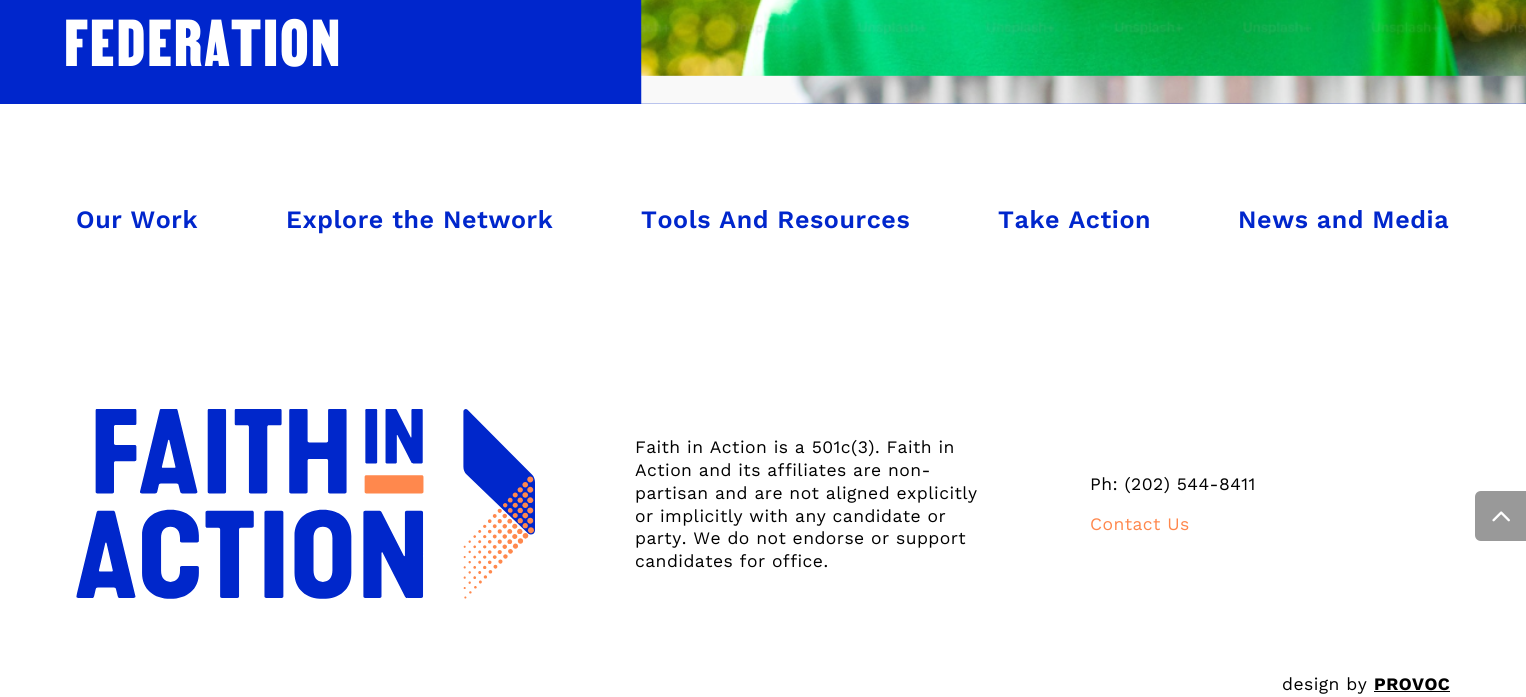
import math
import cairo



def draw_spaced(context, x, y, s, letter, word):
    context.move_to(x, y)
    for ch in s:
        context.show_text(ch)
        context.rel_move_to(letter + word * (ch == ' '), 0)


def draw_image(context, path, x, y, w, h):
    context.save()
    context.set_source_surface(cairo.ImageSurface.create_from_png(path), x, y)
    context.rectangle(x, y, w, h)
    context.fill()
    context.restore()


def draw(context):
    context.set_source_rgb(1, 1, 1)
    context.paint()
    context.set_source_rgb(0, 38 / 255, 204 / 255)
    context.rectangle(0, 0, 1526, 104)
    context.fill()
    draw_image(context, "images/1.png", 641, 0, 885, 104)
    draw_image(context, "images/2.png", 76, 409, 459, 190)
    context.set_source_rgb(0, 0, 0)
    context.rectangle(1374, 691, 76, 1)
    context.fill()
    context.set_source_rgb(153 / 255, 153 / 255, 153 / 255)
    context.new_path()
    context.move_to(1481, 491)
    context.line_to(1526, 491)
    context.line_to(1526, 541)
    context.line_to(1481, 541)
    context.curve_to(1477.5, 541, 1475, 538.5, 1475, 535)
    context.line_to(1475, 497)
    context.curve_to(1475, 493.5, 1477.5, 491, 1481, 491)
    context.close_path()
    context.fill()
    draw_image(context, "images/3.png", 1492, 511, 18, 11)
    context.select_font_face("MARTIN")
    context.set_font_size(80)
    context.set_source_rgb(1, 1, 1)
    draw_spaced(context, 64, 66, "FEDERATION", 2, 0)
    context.select_font_face("Work Sans SemiBold")
    context.set_font_size(25)
    context.set_source_rgb(0, 38 / 255, 204 / 255)
    draw_spaced(context, 76, 228, "Our Work", 0.6, 0)
    draw_spaced(context, 286, 228, "Explore the Network", 0.6, 0)
    draw_spaced(context, 641, 228, "Tools And Resources", 0.6, 0)
    draw_spaced(context, 998, 228, "Take Action", 0.6, 0)
    draw_spaced(context, 1238, 228, "News and Media", 0.6, 0)
    context.select_font_face("Work Sans")
    context.set_font_size(17.5)
    context.set_source_rgb(0, 0, 0)
    draw_spaced(context, 635, 453, "Faith in Action is a 501c(3). Faith in", 0.45, 0)
    draw_spaced(context, 635, 476, "Action and its affiliates are non-", 0.45, 0)
    draw_spaced(context, 635, 499, "partisan and are not aligned explicitly", 0.45, 0)
    draw_spaced(context, 635, 522, "or implicitly with any candidate or", 0.45, 0)
    draw_spaced(context, 635, 544, "party. We do not endorse or support", 0.45, 0)
    draw_spaced(context, 635, 567, "candidates for office.", 0.45, 0)
    draw_spaced(context, 1090, 490, "Ph: (202) 544-8411", 0.45, 0)
    context.set_source_rgb(1, 135 / 255, 76 / 255)
    draw_spaced(context, 1090, 530, "Contact Us", 0.45, 0)
    context.set_source_rgb(0, 0, 0)
    draw_spaced(context, 1282, 690, "design by", 0.45, 0)
    context.select_font_face("Work Sans", cairo.FontSlant.NORMAL, cairo.FontWeight.BOLD)
    draw_spaced(context, 1374, 690, "PROVOC", 0.45, 0)


surface = cairo.ImageSurface(cairo.Format.RGB24, 1526, 697)
context = cairo.Context(surface)
options = cairo.FontOptions()
options.set_hint_metrics(cairo.HintMetrics.OFF)
options.set_hint_style(cairo.HintStyle.NONE)
context.set_font_options(options)
context.set_miter_limit(4)
draw(context)
surface.write_to_png("out.png")
